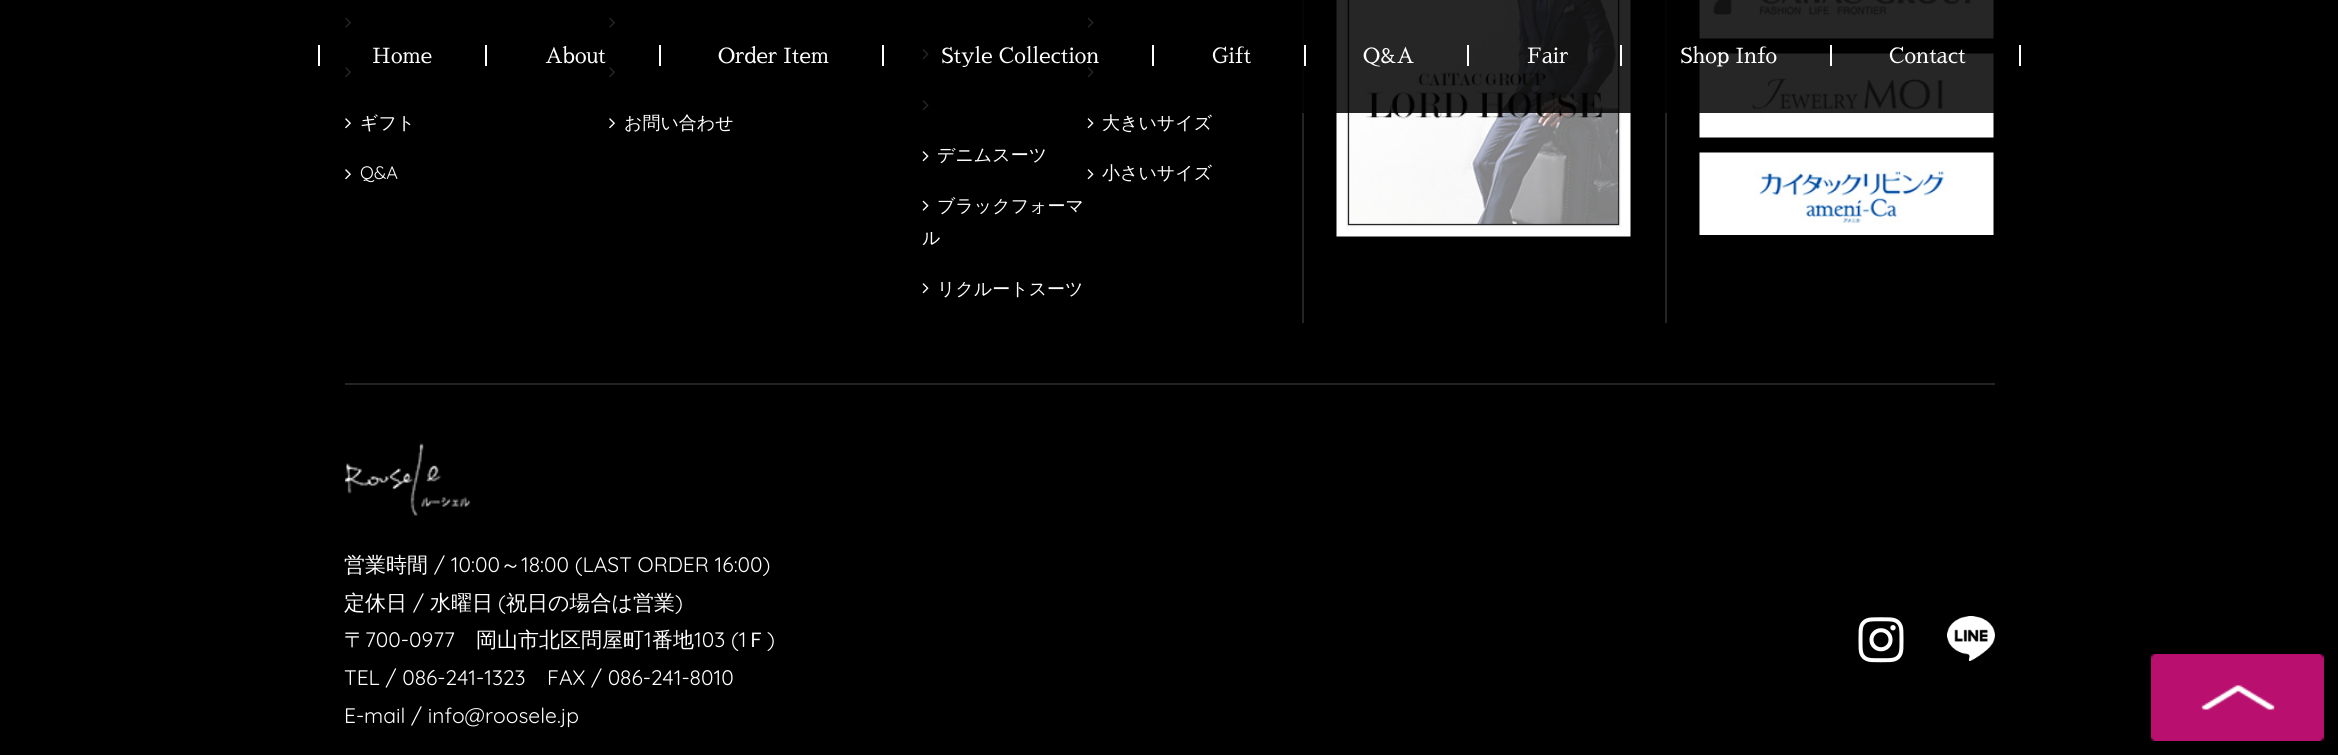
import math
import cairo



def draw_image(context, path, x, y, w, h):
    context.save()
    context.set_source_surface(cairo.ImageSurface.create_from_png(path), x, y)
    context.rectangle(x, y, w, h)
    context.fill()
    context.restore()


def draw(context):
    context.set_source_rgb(0, 0, 0)
    context.paint()
    draw_image(context, "images/1.png", 345, 17, 6, 11)
    draw_image(context, "images/2.png", 345, 67, 6, 11)
    draw_image(context, "images/1.png", 609, 17, 6, 11)
    draw_image(context, "images/2.png", 609, 67, 6, 11)
    draw_image(context, "images/3.png", 922, 49, 7, 11)
    draw_image(context, "images/3.png", 922, 100, 7, 11)
    draw_image(context, "images/4.png", 1087, 17, 7, 11)
    draw_image(context, "images/3.png", 1087, 67, 7, 11)
    context.set_source_rgb(36 / 255, 36 / 255, 36 / 255)
    context.rectangle(1302, 0, 2, 323)
    context.fill()
    draw_image(context, "images/5.png", 1336, 0, 295, 237)
    context.rectangle(1665, 0, 2, 323)
    context.fill()
    draw_image(context, "images/6.png", 1699, 0, 295, 39)
    draw_image(context, "images/7.png", 1699, 53, 295, 85)
    context.set_source_rgba(0, 0, 0, 0.85)
    context.rectangle(345, 0, 1649, 113)
    context.fill()
    context.set_source_rgb(1, 1, 1)
    context.rectangle(485, 45, 2, 21)
    context.fill()
    context.rectangle(318, 45, 2, 21)
    context.fill()
    context.rectangle(659, 45, 2, 21)
    context.fill()
    context.rectangle(882, 45, 2, 21)
    context.fill()
    context.rectangle(1152, 45, 2, 21)
    context.fill()
    context.rectangle(1304, 45, 2, 21)
    context.fill()
    context.rectangle(1467, 45, 2, 21)
    context.fill()
    context.rectangle(1620, 45, 2, 21)
    context.fill()
    context.rectangle(1830, 45, 2, 21)
    context.fill()
    context.rectangle(2019, 45, 2, 21)
    context.fill()
    draw_image(context, "images/2.png", 345, 118, 6, 11)
    draw_image(context, "images/2.png", 345, 169, 6, 11)
    draw_image(context, "images/2.png", 609, 118, 6, 11)
    draw_image(context, "images/3.png", 922, 151, 7, 11)
    draw_image(context, "images/4.png", 922, 200, 7, 11)
    draw_image(context, "images/3.png", 922, 283, 7, 11)
    draw_image(context, "images/3.png", 1087, 118, 7, 11)
    draw_image(context, "images/3.png", 1087, 169, 7, 11)
    draw_image(context, "images/8.png", 1699, 152, 295, 83)
    context.set_source_rgb(36 / 255, 36 / 255, 36 / 255)
    context.rectangle(345, 383, 1650, 2)
    context.fill()
    draw_image(context, "images/9.png", 345, 443, 125, 73)
    draw_image(context, "images/10.png", 1858, 617, 46, 46)
    draw_image(context, "images/11.png", 1947, 616, 48, 45)
    draw_image(context, "images/12.png", 2151, 654, 173, 87)
    context.select_font_face("Sawarabi Mincho")
    context.set_font_size(21)
    context.set_source_rgb(1, 1, 1)
    context.move_to(372, 63)
    context.show_text("Home")
    context.move_to(545, 63)
    context.show_text("About")
    context.move_to(718, 63)
    context.show_text("Order Item")
    context.move_to(941, 63)
    context.show_text("Style Collection")
    context.move_to(1212, 63)
    context.show_text("Gift")
    context.move_to(1363, 63)
    context.show_text("Q&A")
    context.move_to(1527, 63)
    context.show_text("Fair")
    context.move_to(1680, 63)
    context.show_text("Shop Info")
    context.move_to(1889, 63)
    context.show_text("Contact")
    context.select_font_face("WenQuanYi Zen Hei Medium")
    context.set_font_size(18)
    context.move_to(360, 129)
    context.show_text("ギフト")
    context.select_font_face("Quicksand")
    context.move_to(360, 179)
    context.show_text("Q&A")
    context.select_font_face("WenQuanYi Zen Hei Medium")
    context.move_to(624, 129)
    context.show_text("お問い合わせ")
    context.move_to(937, 161)
    context.show_text("デニムスーツ")
    context.move_to(937, 212)
    context.show_text("ブラックフォーマ")
    context.move_to(922, 244)
    context.show_text("ル")
    context.move_to(937, 295)
    context.show_text("リクルートスーツ")
    context.move_to(1102, 129)
    context.show_text("大きいサイズ")
    context.move_to(1102, 179)
    context.show_text("小さいサイズ")
    context.set_font_size(21)
    context.move_to(344, 572)
    context.show_text("営業時間")
    context.select_font_face("Quicksand")
    context.move_to(434, 572)
    context.show_text("/ 10:00")
    context.select_font_face("WenQuanYi Zen Hei Medium")
    context.move_to(500, 572)
    context.show_text("～")
    context.select_font_face("Quicksand")
    context.move_to(521, 572)
    context.show_text("18:00 (LAST ORDER 16:00)")
    context.select_font_face("WenQuanYi Zen Hei Medium")
    context.move_to(344, 610)
    context.show_text("定休日")
    context.select_font_face("Quicksand")
    context.move_to(413, 610)
    context.show_text("/")
    context.select_font_face("WenQuanYi Zen Hei Medium")
    context.move_to(430, 610)
    context.show_text("水曜日")
    context.select_font_face("Quicksand")
    context.move_to(498, 610)
    context.show_text("(")
    context.select_font_face("WenQuanYi Zen Hei Medium")
    context.move_to(506, 610)
    context.show_text("祝日の場合は営業")
    context.select_font_face("Quicksand")
    context.move_to(675, 610)
    context.show_text(")")
    context.select_font_face("WenQuanYi Zen Hei Medium")
    context.move_to(344, 647)
    context.show_text("〒")
    context.select_font_face("Quicksand")
    context.move_to(365, 647)
    context.show_text("700-0977")
    context.select_font_face("WenQuanYi Zen Hei Medium")
    context.move_to(476, 647)
    context.show_text("岡山市北区問屋町")
    context.select_font_face("Quicksand")
    context.move_to(644, 647)
    context.show_text("1")
    context.select_font_face("WenQuanYi Zen Hei Medium")
    context.move_to(652, 647)
    context.show_text("番地")
    context.select_font_face("Quicksand")
    context.move_to(694, 647)
    context.show_text("103 (1")
    context.select_font_face("WenQuanYi Zen Hei Medium")
    context.move_to(746, 647)
    context.show_text("Ｆ")
    context.select_font_face("Quicksand")
    context.move_to(767, 647)
    context.show_text(")")
    context.move_to(344, 685)
    context.show_text("TEL / 086-241-1323")
    context.move_to(547, 685)
    context.show_text("FAX / 086-241-8010")
    context.move_to(344, 723)
    context.show_text("E-mail / info@roosele.jp")


surface = cairo.ImageSurface(cairo.Format.RGB24, 2338, 755)
context = cairo.Context(surface)
options = cairo.FontOptions()
options.set_hint_metrics(cairo.HintMetrics.OFF)
options.set_hint_style(cairo.HintStyle.NONE)
context.set_font_options(options)
context.set_miter_limit(4)
draw(context)
surface.write_to_png("out.png")
